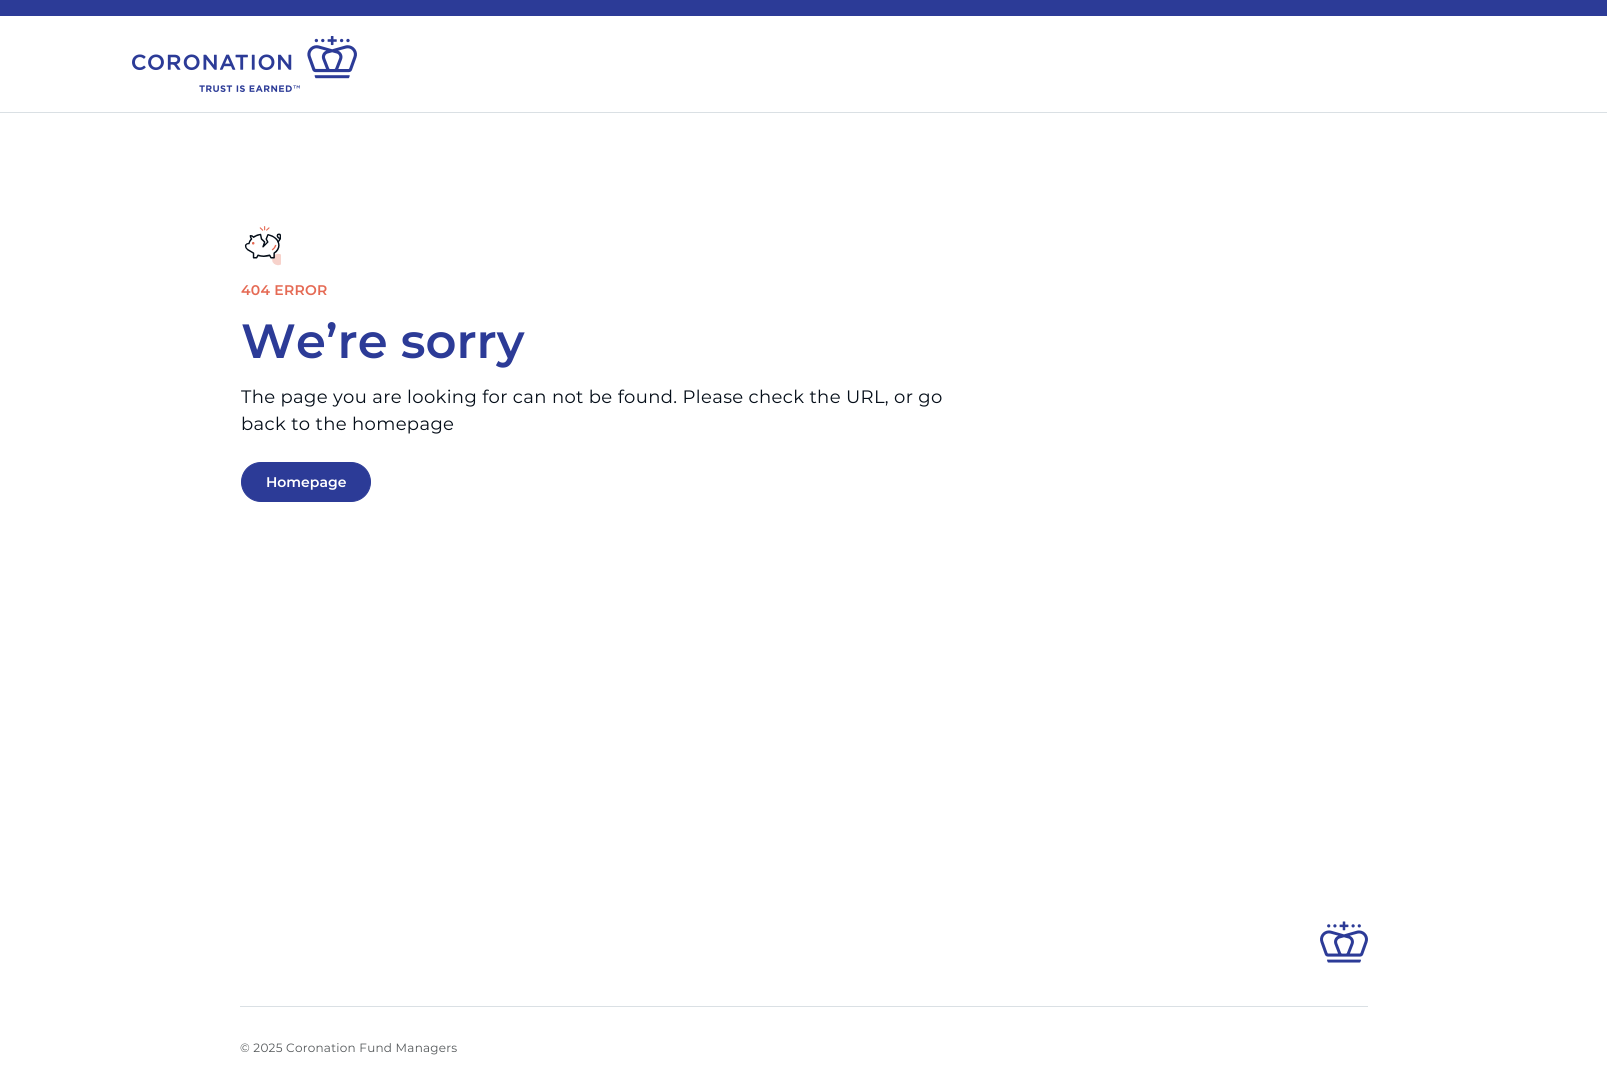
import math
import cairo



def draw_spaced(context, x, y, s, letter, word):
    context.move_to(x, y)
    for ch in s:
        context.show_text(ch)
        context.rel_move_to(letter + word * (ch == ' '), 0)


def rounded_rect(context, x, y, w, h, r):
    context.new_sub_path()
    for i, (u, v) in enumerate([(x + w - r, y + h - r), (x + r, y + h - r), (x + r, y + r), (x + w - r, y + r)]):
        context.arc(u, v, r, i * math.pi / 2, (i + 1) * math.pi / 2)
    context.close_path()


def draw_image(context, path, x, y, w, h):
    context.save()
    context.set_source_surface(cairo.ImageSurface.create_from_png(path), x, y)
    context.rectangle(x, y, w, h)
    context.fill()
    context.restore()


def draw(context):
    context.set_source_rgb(1, 1, 1)
    context.paint()
    context.set_source_rgb(44 / 255, 59 / 255, 151 / 255)
    context.rectangle(0, 0, 1607, 16)
    context.fill()
    context.set_source_rgb(218 / 255, 224 / 255, 228 / 255)
    context.rectangle(0, 112, 1607, 1)
    context.fill()
    draw_image(context, "images/1.png", 132, 36, 225, 56)
    draw_image(context, "images/2.png", 244, 226, 37, 40)
    context.set_source_rgb(44 / 255, 59 / 255, 151 / 255)
    rounded_rect(context, 241.5, 462.5, 129, 39, 19.5)
    context.fill_preserve()
    context.set_line_width(1)
    context.stroke()
    draw_image(context, "images/3.png", 1320, 921, 48, 42)
    context.set_source_rgb(218 / 255, 224 / 255, 228 / 255)
    context.rectangle(240, 1006, 1128, 1)
    context.fill()
    context.select_font_face("Montserrat SemiBold")
    context.set_font_size(14)
    context.set_source_rgb(229 / 255, 106 / 255, 84 / 255)
    draw_spaced(context, 241, 295, "404 ERROR", 0.25, 0)
    context.set_font_size(48)
    context.set_source_rgb(44 / 255, 59 / 255, 151 / 255)
    context.move_to(241, 358)
    context.show_text("We’re sorry")
    context.select_font_face("Montserrat")
    context.set_font_size(18)
    context.set_source_rgb(5 / 255, 14 / 255, 25 / 255)
    draw_spaced(context, 241, 403, "The page you are looking for can not be found. Please check the URL, or go", 0.35, 0)
    draw_spaced(context, 241, 430, "back to the homepage", 0.35, 0)
    context.select_font_face("Montserrat SemiBold")
    context.set_font_size(14)
    context.set_source_rgb(1, 1, 1)
    context.move_to(266, 487)
    context.show_text("Homepage")
    context.select_font_face("Montserrat")
    context.set_font_size(12)
    context.set_source_rgb(84 / 255, 88 / 255, 90 / 255)
    draw_spaced(context, 240, 1052, "© 2025 Coronation Fund Managers", 0.25, 0)


surface = cairo.ImageSurface(cairo.Format.RGB24, 1607, 1089)
context = cairo.Context(surface)
options = cairo.FontOptions()
options.set_hint_metrics(cairo.HintMetrics.OFF)
options.set_hint_style(cairo.HintStyle.NONE)
context.set_font_options(options)
context.set_miter_limit(4)
draw(context)
surface.write_to_png("out.png")
